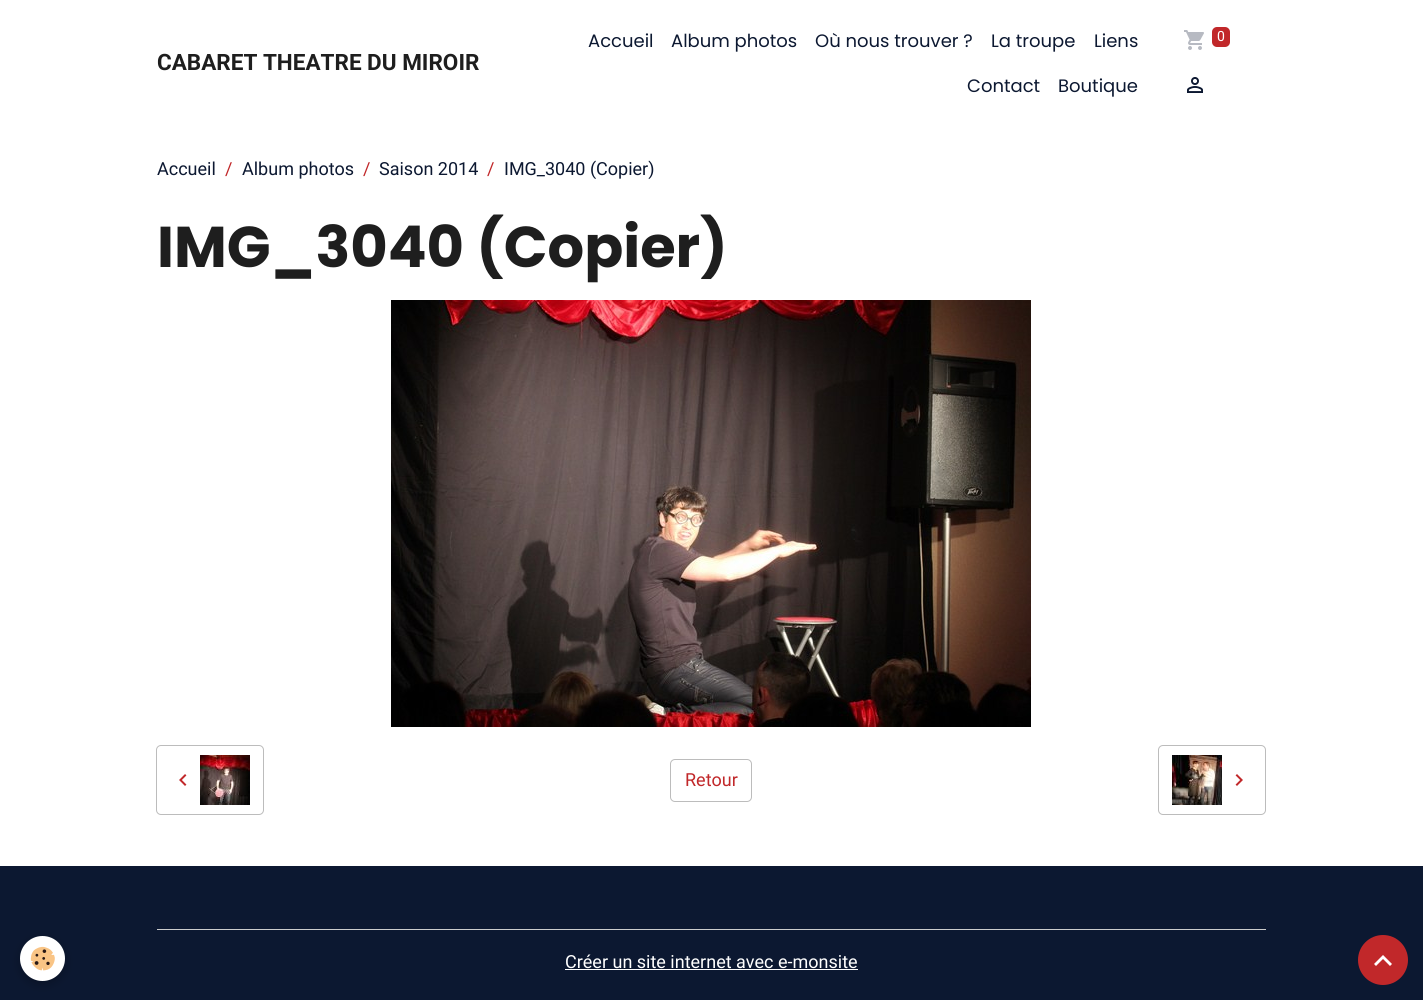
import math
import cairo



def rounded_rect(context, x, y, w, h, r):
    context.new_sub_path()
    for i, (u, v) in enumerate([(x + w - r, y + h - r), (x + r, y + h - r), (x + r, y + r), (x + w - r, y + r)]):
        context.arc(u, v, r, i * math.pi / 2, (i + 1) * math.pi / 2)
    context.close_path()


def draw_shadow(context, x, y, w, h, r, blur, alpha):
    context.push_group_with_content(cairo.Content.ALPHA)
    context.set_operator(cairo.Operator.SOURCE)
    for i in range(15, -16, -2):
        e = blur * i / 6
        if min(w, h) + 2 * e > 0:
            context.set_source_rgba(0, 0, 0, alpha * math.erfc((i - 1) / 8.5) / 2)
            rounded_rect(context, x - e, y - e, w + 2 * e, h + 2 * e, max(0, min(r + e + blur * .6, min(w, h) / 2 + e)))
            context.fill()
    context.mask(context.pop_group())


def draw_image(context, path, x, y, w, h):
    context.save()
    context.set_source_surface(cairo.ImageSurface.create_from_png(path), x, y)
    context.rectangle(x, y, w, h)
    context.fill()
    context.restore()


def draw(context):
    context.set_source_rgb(1, 1, 1)
    context.paint()
    draw_image(context, "images/1.png", 1184, 30, 20, 20)
    context.set_source_rgb(193 / 255, 40 / 255, 42 / 255)
    rounded_rect(context, 1212, 27, 18, 20, 5)
    context.fill()
    draw_image(context, "images/2.png", 1187, 77, 16, 16)
    draw_image(context, "images/3.png", 391, 300, 640, 427)
    rounded_rect(context, 156.5, 745.5, 107, 69, 4.5)
    context.set_source_rgb(188 / 255, 188 / 255, 188 / 255)
    context.set_line_width(1)
    context.stroke()
    draw_image(context, "images/4.png", 179, 774, 8, 12)
    draw_image(context, "images/5.png", 200, 755, 50, 50)
    rounded_rect(context, 670.5, 759.5, 81, 42, 4.5)
    context.stroke()
    rounded_rect(context, 1158.5, 745.5, 107, 69, 4.5)
    context.stroke()
    draw_image(context, "images/6.png", 1172, 755, 50, 50)
    draw_image(context, "images/7.png", 1235, 774, 8, 12)
    context.set_source_rgb(12 / 255, 24 / 255, 49 / 255)
    context.rectangle(0, 866, 1423, 134)
    context.fill()
    context.set_source_rgb(0, 0, 0)
    draw_shadow(context, 20, 939, 45, 45, 22.5, 5, 0.24)
    context.set_source_rgb(1, 1, 1)
    context.arc(42.5, 958.5, 22.5, 0, 2 * math.pi)
    context.fill()
    draw_image(context, "images/8.png", 30, 946, 25, 25)
    context.set_source_rgb(204 / 255, 204 / 255, 204 / 255)
    context.rectangle(157, 929, 1109, 1)
    context.fill()
    context.set_source_rgb(1, 1, 1)
    context.rectangle(565, 969, 293, 1)
    context.fill()
    context.set_source_rgb(193 / 255, 40 / 255, 42 / 255)
    context.arc(1383, 960, 25, 0, 2 * math.pi)
    context.fill()
    context.set_source_rgb(1, 1, 1)
    context.new_path()
    context.move_to(1383, 955)
    context.line_to(1392, 964)
    context.line_to(1390, 966)
    context.line_to(1383, 959)
    context.line_to(1376, 966)
    context.line_to(1374, 964)
    context.close_path()
    context.fill()
    context.select_font_face("Roboto", cairo.FontSlant.NORMAL, cairo.FontWeight.BOLD)
    context.set_font_size(22.5)
    context.set_source_rgb(30 / 255, 30 / 255, 30 / 255)
    context.move_to(157, 70)
    context.show_text("CABARET THEATRE DU MIROIR")
    context.select_font_face("Poppins")
    context.set_font_size(18)
    context.set_source_rgb(12 / 255, 24 / 255, 49 / 255)
    context.move_to(588, 47)
    context.show_text("Accueil")
    context.move_to(671, 47)
    context.show_text("Album photos")
    context.move_to(815, 47)
    context.show_text("Où nous trouver ?")
    context.move_to(991, 47)
    context.show_text("La troupe")
    context.move_to(1094, 47)
    context.show_text("Liens")
    context.move_to(967, 92)
    context.show_text("Contact")
    context.move_to(1058, 92)
    context.show_text("Boutique")
    context.select_font_face("Roboto")
    context.set_font_size(14)
    context.set_source_rgb(1, 1, 1)
    context.move_to(1217, 41)
    context.show_text("0")
    context.set_font_size(18)
    context.set_source_rgb(12 / 255, 24 / 255, 49 / 255)
    context.move_to(157, 175)
    context.show_text("Accueil")
    context.set_source_rgb(193 / 255, 40 / 255, 42 / 255)
    context.move_to(225, 175)
    context.show_text("/")
    context.set_source_rgb(12 / 255, 24 / 255, 49 / 255)
    context.move_to(242, 175)
    context.show_text("Album photos")
    context.set_source_rgb(193 / 255, 40 / 255, 42 / 255)
    context.move_to(363, 175)
    context.show_text("/")
    context.set_source_rgb(12 / 255, 24 / 255, 49 / 255)
    context.move_to(379, 175)
    context.show_text("Saison 2014")
    context.set_source_rgb(193 / 255, 40 / 255, 42 / 255)
    context.move_to(487, 175)
    context.show_text("/")
    context.set_source_rgb(12 / 255, 24 / 255, 49 / 255)
    context.move_to(504, 175)
    context.show_text("IMG_3040 (Copier)")
    context.select_font_face("Poppins", cairo.FontSlant.NORMAL, cairo.FontWeight.BOLD)
    context.set_font_size(57.5)
    context.set_source_rgb(30 / 255, 30 / 255, 30 / 255)
    context.move_to(157, 267)
    context.show_text("IMG_3040 (Copier)")
    context.select_font_face("Roboto")
    context.set_font_size(18)
    context.set_source_rgb(193 / 255, 40 / 255, 42 / 255)
    context.move_to(685, 786)
    context.show_text("Retour")
    context.set_source_rgb(1, 1, 1)
    context.move_to(565, 968)
    context.show_text("Créer un site internet avec e-monsite")


surface = cairo.ImageSurface(cairo.Format.RGB24, 1423, 1000)
context = cairo.Context(surface)
options = cairo.FontOptions()
options.set_hint_metrics(cairo.HintMetrics.OFF)
options.set_hint_style(cairo.HintStyle.NONE)
context.set_font_options(options)
context.set_miter_limit(4)
draw(context)
surface.write_to_png("out.png")
